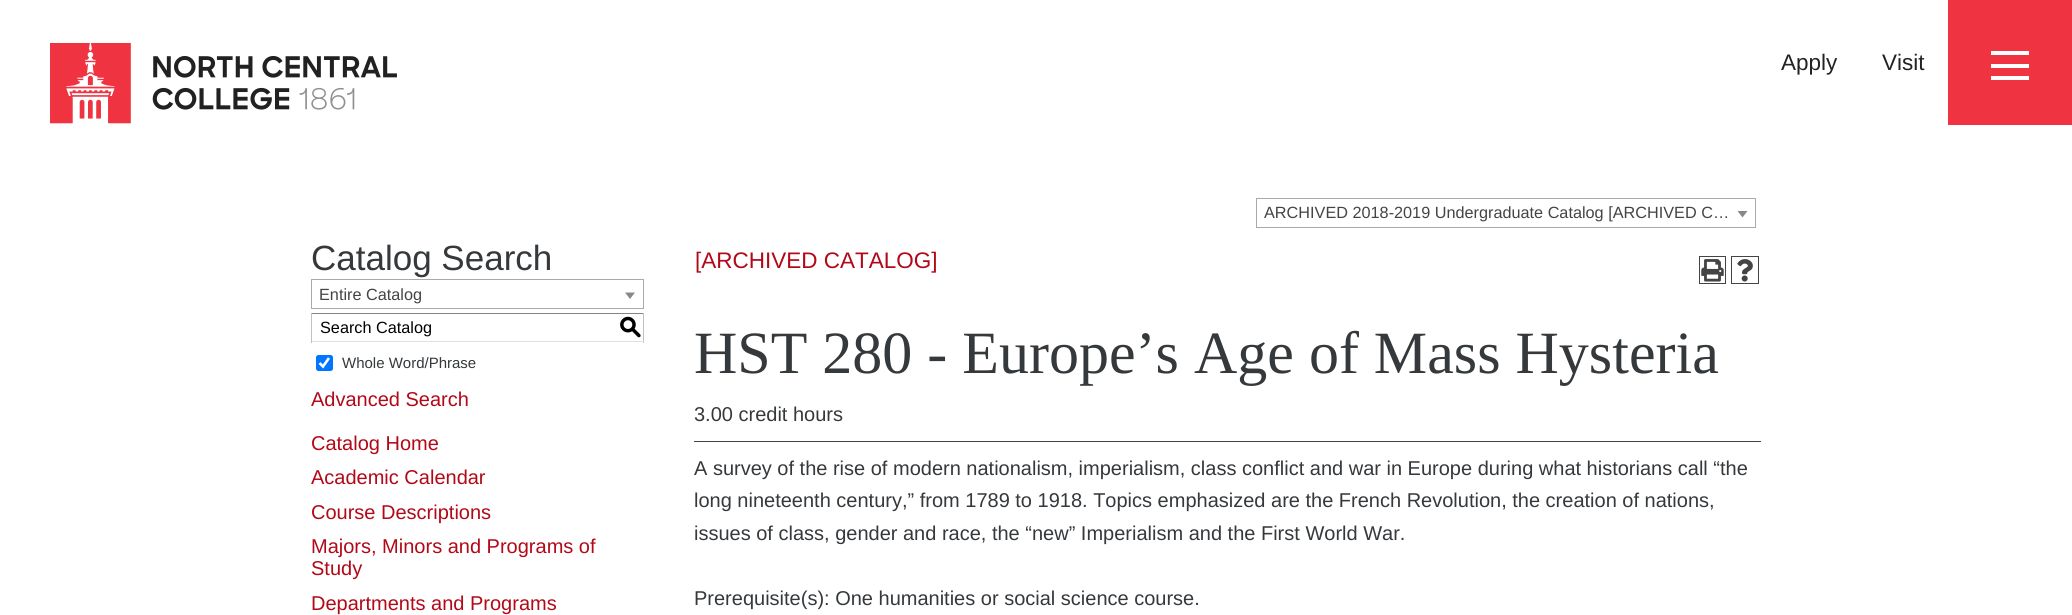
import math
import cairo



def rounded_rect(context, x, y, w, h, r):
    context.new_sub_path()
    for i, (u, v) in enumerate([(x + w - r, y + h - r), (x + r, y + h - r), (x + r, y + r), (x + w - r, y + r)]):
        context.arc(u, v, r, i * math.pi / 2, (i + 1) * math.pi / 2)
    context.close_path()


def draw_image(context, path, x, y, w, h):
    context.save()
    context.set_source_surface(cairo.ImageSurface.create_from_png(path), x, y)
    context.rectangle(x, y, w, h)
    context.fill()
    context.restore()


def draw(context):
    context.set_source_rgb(1, 1, 1)
    context.paint()
    draw_image(context, "images/1.png", 50, 43, 347, 81)
    context.set_source_rgb(239 / 255, 51 / 255, 64 / 255)
    context.rectangle(1948, 0, 124, 125)
    context.fill()
    context.set_source_rgb(1, 1, 1)
    context.rectangle(1991, 64, 38, 4)
    context.fill()
    context.rectangle(1991, 51, 38, 4)
    context.fill()
    context.rectangle(1991, 76, 38, 4)
    context.fill()
    context.rectangle(1256.5, 198.5, 499, 29)
    context.set_source_rgb(170 / 255, 170 / 255, 170 / 255)
    context.set_line_width(1)
    context.stroke()
    context.set_source_rgb(136 / 255, 136 / 255, 136 / 255)
    context.new_path()
    context.move_to(1737.5, 211)
    context.line_to(1747.5, 211)
    context.line_to(1742.5, 217.5)
    context.close_path()
    context.fill()
    context.rectangle(311.5, 279.5, 332, 29)
    context.set_source_rgb(170 / 255, 170 / 255, 170 / 255)
    context.stroke()
    context.set_source_rgb(136 / 255, 136 / 255, 136 / 255)
    context.new_path()
    context.move_to(625, 292.5)
    context.line_to(635, 292.5)
    context.line_to(630, 299)
    context.close_path()
    context.fill()
    context.set_source_rgb(132 / 255, 132 / 255, 132 / 255)
    context.rectangle(311, 313, 333, 1)
    context.fill()
    context.set_source_rgb(193 / 255, 193 / 255, 193 / 255)
    context.rectangle(643, 313, 1, 30)
    context.fill()
    context.set_source_rgb(225 / 255, 225 / 255, 225 / 255)
    context.rectangle(311, 341, 333, 1)
    context.fill()
    context.set_source_rgb(193 / 255, 193 / 255, 193 / 255)
    context.rectangle(311, 313, 1, 30)
    context.fill()
    context.set_source_rgb(0, 117 / 255, 1)
    rounded_rect(context, 316, 355, 17, 16, 2.5)
    context.fill()
    context.new_path()
    context.move_to(319.5, 363)
    context.line_to(323, 366.5)
    context.line_to(329, 358)
    context.set_source_rgb(1, 1, 1)
    context.set_line_width(2.6)
    context.stroke()
    context.rectangle(1699.5, 256.5, 26, 27)
    context.set_source_rgb(68 / 255, 68 / 255, 68 / 255)
    context.set_line_width(1)
    context.stroke()
    draw_image(context, "images/2.png", 1701, 259, 23, 23)
    context.rectangle(1731.5, 256.5, 27, 27)
    context.stroke()
    draw_image(context, "images/3.png", 1737, 259, 16, 23)
    context.rectangle(694, 441, 1067, 1)
    context.fill()
    context.select_font_face("Liberation Sans")
    context.set_font_size(22.5)
    context.set_source_rgb(34 / 255, 34 / 255, 34 / 255)
    context.move_to(1781, 70)
    context.show_text("Apply")
    context.move_to(1882, 70)
    context.show_text("Visit")
    context.set_font_size(16.25)
    context.set_source_rgb(68 / 255, 68 / 255, 68 / 255)
    context.move_to(1264, 218)
    context.show_text("ARCHIVED 2018-2019 Undergraduate Catalog [ARCHIVED C…")
    context.set_font_size(35)
    context.set_source_rgb(53 / 255, 57 / 255, 60 / 255)
    context.move_to(311, 270)
    context.show_text("Catalog Search")
    context.set_font_size(16.25)
    context.set_source_rgb(68 / 255, 68 / 255, 68 / 255)
    context.move_to(319, 300)
    context.show_text("Entire Catalog")
    context.set_source_rgb(0, 0, 0)
    context.move_to(320, 333)
    context.show_text("Search Catalog")
    context.select_font_face("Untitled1 Medium")
    context.set_font_size(22.5)
    context.move_to(619, 334)
    context.show_text("S")
    context.select_font_face("Liberation Sans")
    context.set_font_size(15)
    context.set_source_rgb(53 / 255, 57 / 255, 60 / 255)
    context.move_to(342, 368)
    context.show_text("Whole Word/Phrase")
    context.set_font_size(20)
    context.set_source_rgb(178 / 255, 8 / 255, 24 / 255)
    context.move_to(311, 406)
    context.show_text("Advanced Search")
    context.move_to(311, 450)
    context.show_text("Catalog Home")
    context.move_to(311, 484)
    context.show_text("Academic Calendar")
    context.move_to(311, 519)
    context.show_text("Course Descriptions")
    context.move_to(311, 553)
    context.show_text("Majors, Minors and Programs of")
    context.move_to(311, 575)
    context.show_text("Study")
    context.move_to(311, 610)
    context.show_text("Departments and Programs")
    context.set_font_size(22.5)
    context.move_to(695, 268)
    context.show_text("[ARCHIVED CATALOG]")
    context.select_font_face("Liberation Serif")
    context.set_font_size(60)
    context.set_source_rgb(53 / 255, 57 / 255, 60 / 255)
    context.move_to(694, 373)
    context.show_text("HST 280 - Europe’s Age of Mass Hysteria")
    context.select_font_face("Liberation Sans")
    context.set_font_size(20)
    context.move_to(694, 421)
    context.show_text("3.00 credit hours")
    context.move_to(694, 475)
    context.show_text("A survey of the rise of modern nationalism, imperialism, class conflict and war in Europe during what historians call “the")
    context.move_to(694, 507)
    context.show_text("long nineteenth century,” from 1789 to 1918. Topics emphasized are the French Revolution, the creation of nations,")
    context.move_to(694, 540)
    context.show_text("issues of class, gender and race, the “new” Imperialism and the First World War.")
    context.move_to(694, 605)
    context.show_text("Prerequisite(s): One humanities or social science course.")


surface = cairo.ImageSurface(cairo.Format.RGB24, 2072, 615)
context = cairo.Context(surface)
options = cairo.FontOptions()
options.set_hint_metrics(cairo.HintMetrics.OFF)
options.set_hint_style(cairo.HintStyle.NONE)
context.set_font_options(options)
context.set_miter_limit(4)
draw(context)
surface.write_to_png("out.png")
